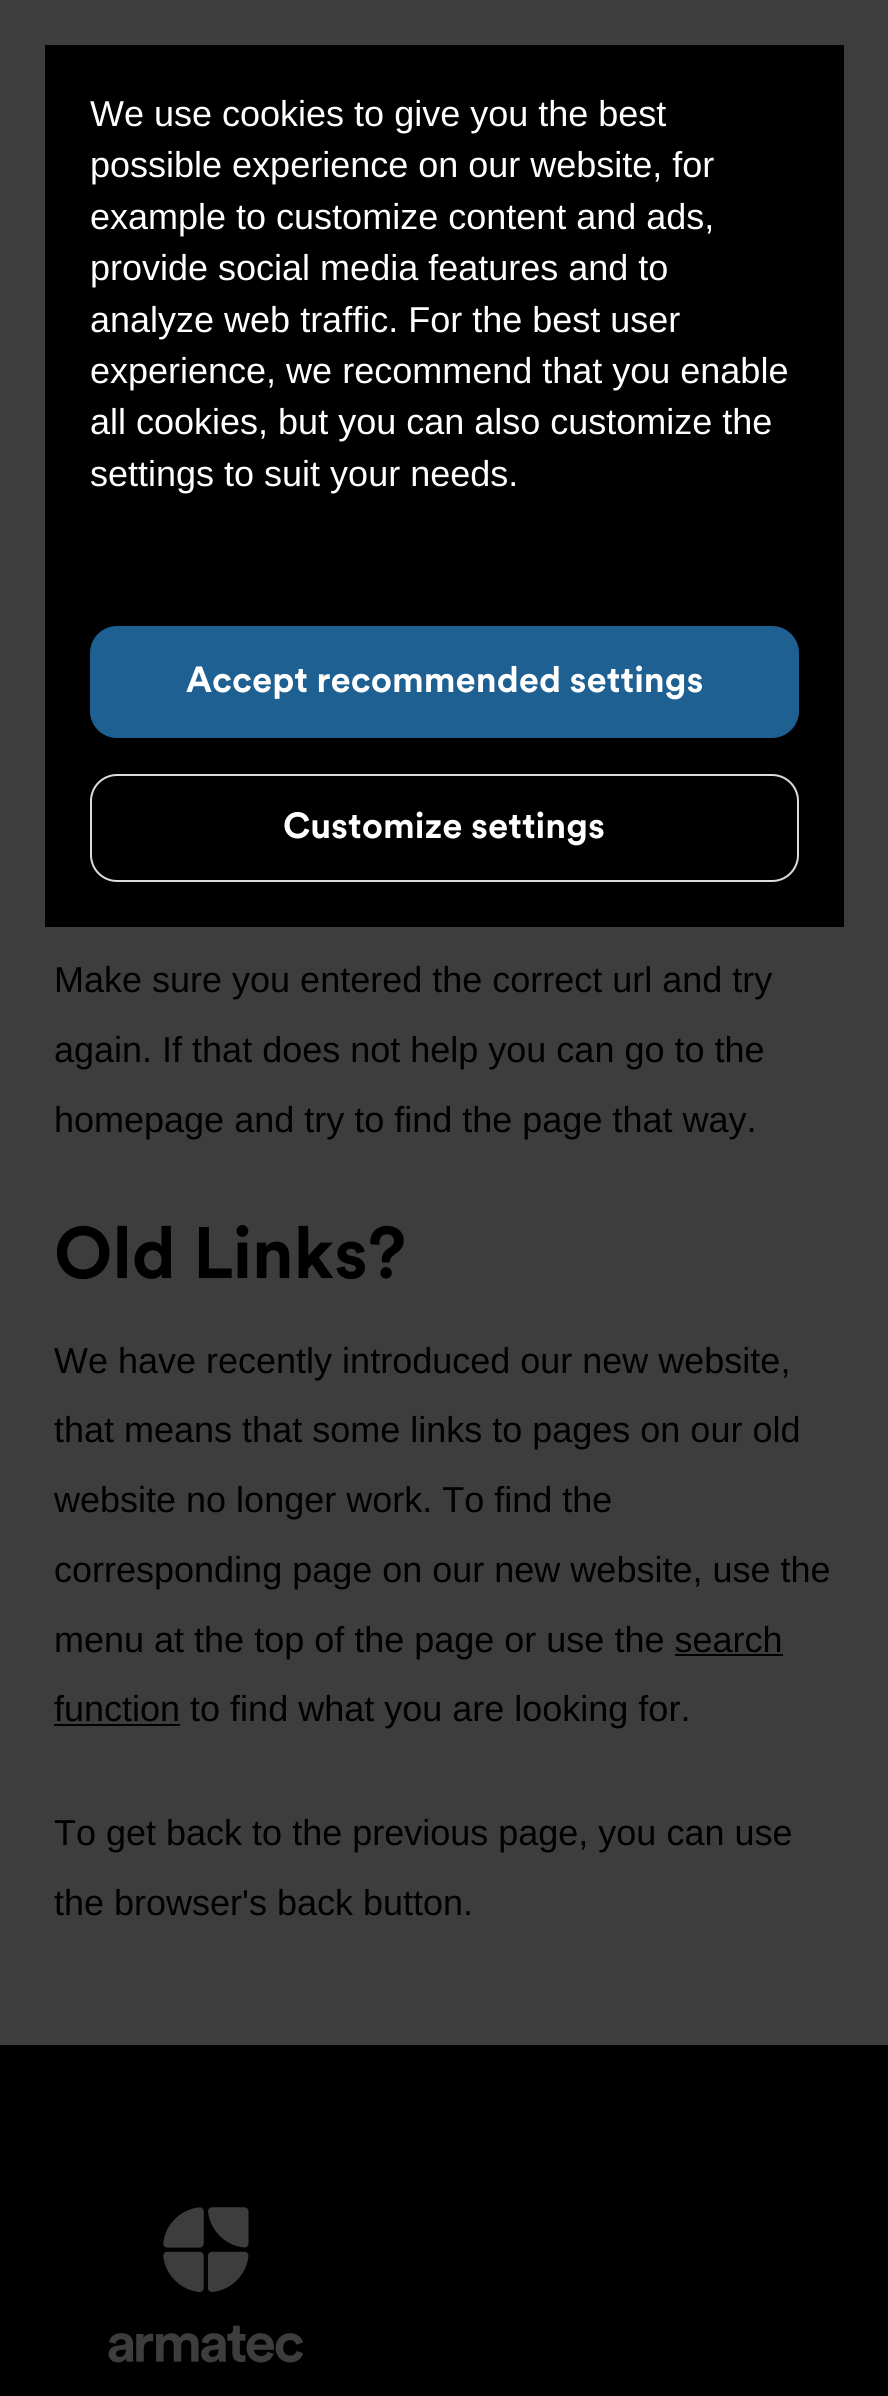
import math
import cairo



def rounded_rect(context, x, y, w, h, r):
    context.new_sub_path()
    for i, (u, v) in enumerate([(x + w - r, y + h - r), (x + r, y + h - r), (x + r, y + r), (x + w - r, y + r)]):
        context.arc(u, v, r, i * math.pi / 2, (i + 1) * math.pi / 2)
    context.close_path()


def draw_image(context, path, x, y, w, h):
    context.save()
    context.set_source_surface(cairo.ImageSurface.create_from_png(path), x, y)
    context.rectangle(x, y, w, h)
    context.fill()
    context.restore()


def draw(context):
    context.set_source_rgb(61 / 255, 61 / 255, 61 / 255)
    context.paint()
    context.set_source_rgb(0, 0, 0)
    context.rectangle(45, 45, 799, 882)
    context.fill()
    context.set_source_rgb(30 / 255, 96 / 255, 146 / 255)
    rounded_rect(context, 90, 626, 709, 112, 27)
    context.fill()
    rounded_rect(context, 91, 775, 707, 106, 26)
    context.set_source_rgb(221 / 255, 221 / 255, 221 / 255)
    context.stroke()
    context.set_source_rgb(0, 0, 0)
    context.rectangle(675, 1654, 108, 2)
    context.fill()
    context.rectangle(54, 1724, 126, 2)
    context.fill()
    context.rectangle(0, 2045, 888, 351)
    context.fill()
    draw_image(context, "images/1.png", 108, 2207, 195, 156)
    context.select_font_face("Liberation Sans")
    context.set_font_size(36)
    context.set_source_rgb(1, 1, 1)
    context.move_to(90, 126)
    context.show_text("We use cookies to give you the best")
    context.move_to(90, 177)
    context.show_text("possible experience on our website, for")
    context.move_to(90, 229)
    context.show_text("example to customize content and ads,")
    context.move_to(90, 280)
    context.show_text("provide social media features and to")
    context.move_to(90, 332)
    context.show_text("analyze web traffic. For the best user")
    context.move_to(90, 383)
    context.show_text("experience, we recommend that you enable")
    context.move_to(90, 434)
    context.show_text("all cookies, but you can also customize the")
    context.move_to(90, 486)
    context.show_text("settings to suit your needs.")
    context.select_font_face("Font", cairo.FontSlant.NORMAL, cairo.FontWeight.BOLD)
    context.move_to(186, 692)
    context.show_text("Accept recommended settings")
    context.move_to(283, 838)
    context.show_text("Customize settings")
    context.select_font_face("Liberation Sans")
    context.set_source_rgb(0, 0, 0)
    context.move_to(54, 992)
    context.show_text("Make sure you entered the correct url and try")
    context.move_to(54, 1062)
    context.show_text("again. If that does not help you can go to the")
    context.move_to(54, 1132)
    context.show_text("homepage and try to find the page that way.")
    context.select_font_face("Font", cairo.FontSlant.NORMAL, cairo.FontWeight.BOLD)
    context.set_font_size(72)
    context.move_to(54, 1278)
    context.show_text("Old Links?")
    context.select_font_face("Liberation Sans")
    context.set_font_size(36)
    context.move_to(54, 1373)
    context.show_text("We have recently introduced our new website,")
    context.move_to(54, 1442)
    context.show_text("that means that some links to pages on our old")
    context.move_to(54, 1512)
    context.show_text("website no longer work. To find the")
    context.move_to(54, 1582)
    context.show_text("corresponding page on our new website, use the")
    context.move_to(54, 1652)
    context.show_text("menu at the top of the page or use the search")
    context.move_to(54, 1721)
    context.show_text("function to find what you are looking for.")
    context.move_to(54, 1845)
    context.show_text("To get back to the previous page, you can use")
    context.move_to(54, 1915)
    context.show_text("the browser's back button.")


surface = cairo.ImageSurface(cairo.Format.RGB24, 888, 2396)
context = cairo.Context(surface)
options = cairo.FontOptions()
options.set_hint_metrics(cairo.HintMetrics.OFF)
options.set_hint_style(cairo.HintStyle.NONE)
context.set_font_options(options)
context.set_miter_limit(4)
draw(context)
surface.write_to_png("out.png")
